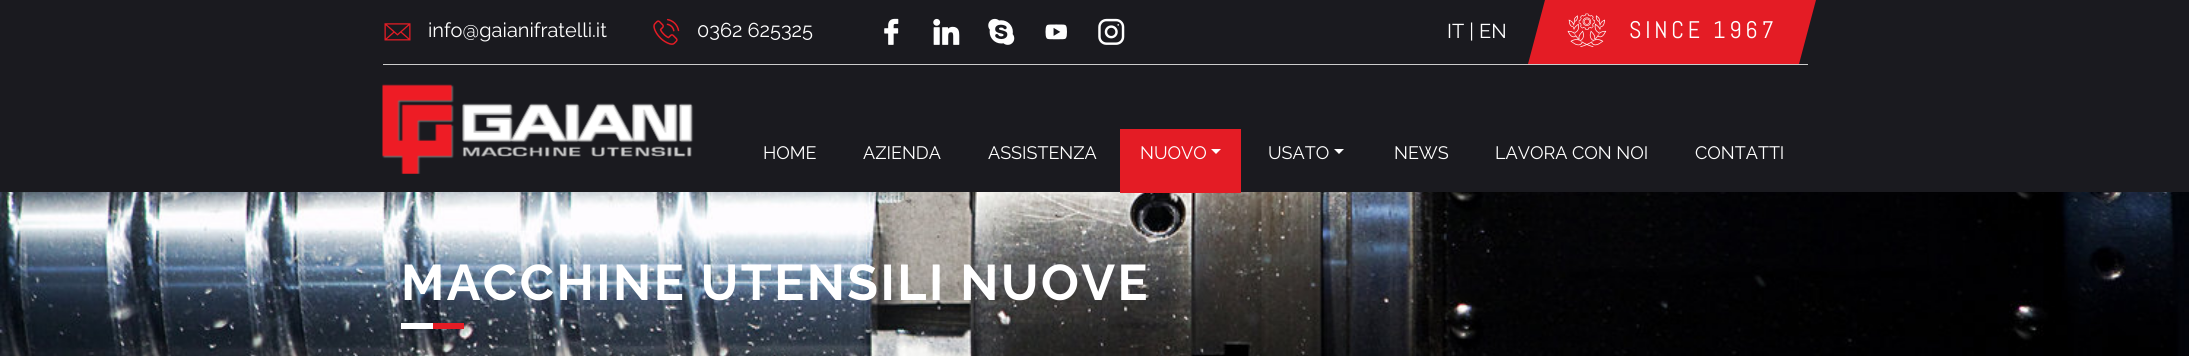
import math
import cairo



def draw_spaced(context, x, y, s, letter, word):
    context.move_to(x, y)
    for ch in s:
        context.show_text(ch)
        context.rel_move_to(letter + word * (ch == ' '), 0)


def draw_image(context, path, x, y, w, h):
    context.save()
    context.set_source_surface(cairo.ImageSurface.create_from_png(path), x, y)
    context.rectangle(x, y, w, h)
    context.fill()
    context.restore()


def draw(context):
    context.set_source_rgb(26 / 255, 26 / 255, 31 / 255)
    context.paint()
    context.set_source_rgb(204 / 255, 204 / 255, 204 / 255)
    context.rectangle(383, 64, 1425, 1)
    context.fill()
    draw_image(context, "images/1.png", 384, 23, 27, 18)
    draw_image(context, "images/2.png", 653, 18, 27, 27)
    draw_image(context, "images/3.png", 884, 18, 15, 27)
    draw_image(context, "images/4.png", 933, 18, 27, 27)
    draw_image(context, "images/5.png", 988, 18, 27, 27)
    draw_image(context, "images/6.png", 1045, 24, 22, 16)
    draw_image(context, "images/7.png", 1098, 18, 27, 27)
    context.set_source_rgb(228 / 255, 28 / 255, 37 / 255)
    context.new_path()
    context.move_to(1545, 0)
    context.line_to(1816, 0)
    context.line_to(1799, 64)
    context.line_to(1528, 64)
    context.close_path()
    context.fill()
    draw_image(context, "images/8.png", 1567, 13, 40, 34)
    draw_image(context, "images/9.png", 382, 84, 312, 90)
    draw_image(context, "images/10.png", 0, 192, 2189, 164)
    context.rectangle(1120, 129, 121, 64)
    context.fill()
    context.set_source_rgb(1, 1, 1)
    context.new_path()
    context.move_to(1211, 149)
    context.line_to(1221, 149)
    context.line_to(1216, 154)
    context.close_path()
    context.fill()
    context.new_path()
    context.move_to(1334, 149)
    context.line_to(1344, 149)
    context.line_to(1339, 154)
    context.close_path()
    context.fill()
    context.set_source_rgb(228 / 255, 28 / 255, 37 / 255)
    context.rectangle(433, 323, 31, 6)
    context.fill()
    context.set_source_rgb(1, 1, 1)
    context.rectangle(401, 323, 32, 6)
    context.fill()
    context.select_font_face("Raleway")
    context.set_font_size(20)
    context.move_to(428, 37)
    context.show_text("info@gaianifratelli.it")
    context.move_to(697, 37)
    context.show_text("0362 625325")
    context.move_to(1447, 38)
    context.show_text("IT | EN")
    context.select_font_face("Abel")
    context.set_font_size(24)
    draw_spaced(context, 1629, 38, "SINCE 1967", 3.75, 0)
    context.select_font_face("Raleway")
    context.set_font_size(18)
    context.move_to(763, 159)
    context.show_text("HOME")
    context.move_to(863, 159)
    context.show_text("AZIENDA")
    context.move_to(988, 159)
    context.show_text("ASSISTENZA")
    context.move_to(1140, 159)
    context.show_text("NUOVO")
    context.move_to(1268, 159)
    context.show_text("USATO")
    context.move_to(1394, 159)
    context.show_text("NEWS")
    context.move_to(1495, 159)
    context.show_text("LAVORA CON NOI")
    context.move_to(1695, 159)
    context.show_text("CONTATTI")
    context.select_font_face("Raleway", cairo.FontSlant.NORMAL, cairo.FontWeight.BOLD)
    context.set_font_size(50)
    draw_spaced(context, 401, 300, "MACCHINE UTENSILI NUOVE", 2.5, 0)


surface = cairo.ImageSurface(cairo.Format.RGB24, 2189, 356)
context = cairo.Context(surface)
options = cairo.FontOptions()
options.set_hint_metrics(cairo.HintMetrics.OFF)
options.set_hint_style(cairo.HintStyle.NONE)
context.set_font_options(options)
context.set_miter_limit(4)
draw(context)
surface.write_to_png("out.png")
